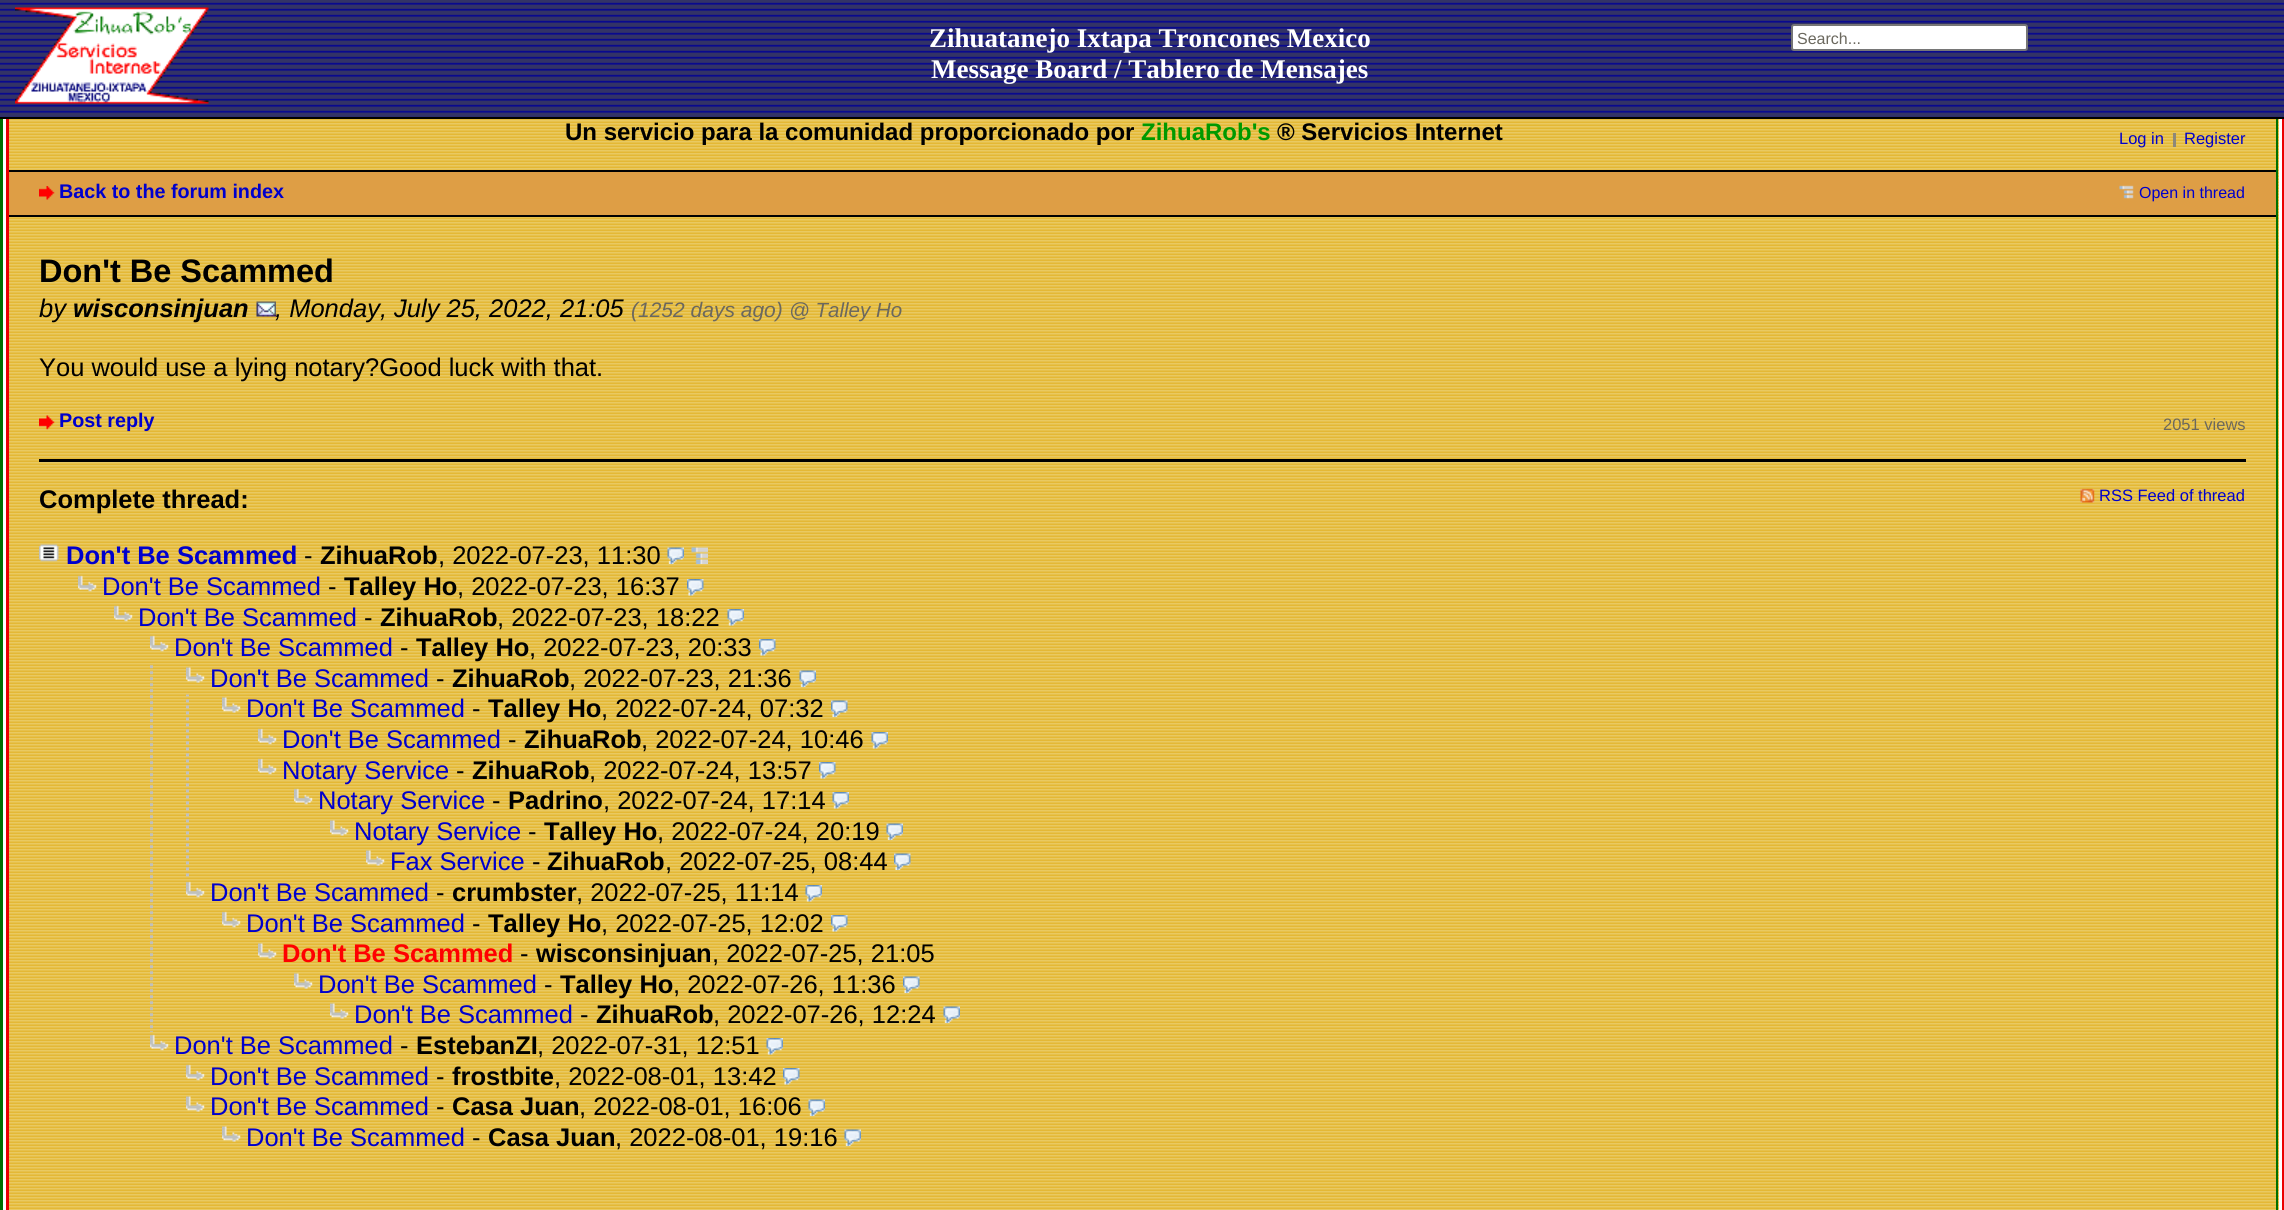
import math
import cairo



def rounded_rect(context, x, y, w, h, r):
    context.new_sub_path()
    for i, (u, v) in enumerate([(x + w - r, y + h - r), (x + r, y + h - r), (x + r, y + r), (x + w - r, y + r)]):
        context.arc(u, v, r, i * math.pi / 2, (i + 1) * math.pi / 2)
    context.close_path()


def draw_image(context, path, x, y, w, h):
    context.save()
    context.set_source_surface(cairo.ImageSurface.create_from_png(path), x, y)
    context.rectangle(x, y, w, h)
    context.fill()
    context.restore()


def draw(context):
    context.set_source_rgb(1, 1, 1)
    context.paint()
    draw_image(context, "images/1.png", 9, 119, 2270, 1091)
    context.set_source_rgb(51 / 255, 51 / 255, 102 / 255)
    context.rectangle(0, 0, 2284, 2)
    context.fill()
    draw_image(context, "images/2.png", 0, 2, 2284, 115)
    context.set_source_rgb(235 / 255, 0, 0)
    context.new_path()
    context.move_to(2284, 118)
    context.line_to(2284, 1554)
    context.line_to(2282, 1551)
    context.line_to(2282, 118)
    context.close_path()
    context.fill()
    context.set_source_rgb(0, 112 / 255, 0)
    context.new_path()
    context.move_to(2278, 118)
    context.line_to(2278, 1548)
    context.line_to(2276, 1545)
    context.line_to(2276, 118)
    context.close_path()
    context.fill()
    context.set_source_rgb(1 / 255, 1 / 255, 1 / 255)
    context.rectangle(0, 117, 2284, 2)
    context.fill()
    draw_image(context, "images/3.png", 15, 7, 194, 97)
    context.set_source_rgb(1, 1, 1)
    rounded_rect(context, 1792, 25, 235, 25, 2)
    context.fill_preserve()
    context.set_source_rgb(118 / 255, 118 / 255, 118 / 255)
    context.stroke()
    context.set_source_rgb(0, 112 / 255, 0)
    context.rectangle(0, 119, 3, 1091)
    context.fill()
    context.set_source_rgb(235 / 255, 0, 0)
    context.rectangle(6, 119, 3, 1091)
    context.fill()
    context.set_source_rgba(128 / 255, 128 / 255, 128 / 255, 0.87)
    context.rectangle(2173, 133, 3, 14)
    context.fill()
    context.set_source_rgb(222 / 255, 158 / 255, 69 / 255)
    context.rectangle(9, 172, 2267, 43)
    context.fill()
    context.set_source_rgb(1 / 255, 1 / 255, 1 / 255)
    context.rectangle(9, 170, 2267, 2)
    context.fill()
    context.rectangle(9, 215, 2267, 2)
    context.fill()
    draw_image(context, "images/4.png", 39, 186, 16, 14)
    draw_image(context, "images/5.png", 2119, 185, 15, 14)
    draw_image(context, "images/6.png", 256, 301, 20, 16)
    draw_image(context, "images/7.png", 39, 415, 16, 15)
    context.rectangle(39, 459, 2207, 3)
    context.fill()
    draw_image(context, "images/8.png", 2080, 488, 15, 15)
    draw_image(context, "images/9.png", 39, 544, 20, 18)
    draw_image(context, "images/10.png", 667, 547, 17, 17)
    draw_image(context, "images/11.png", 691, 547, 17, 17)
    draw_image(context, "images/12.png", 78, 575, 19, 17)
    draw_image(context, "images/13.png", 687, 579, 17, 17)
    draw_image(context, "images/12.png", 114, 605, 19, 17)
    draw_image(context, "images/14.png", 727, 609, 17, 17)
    draw_image(context, "images/12.png", 150, 635, 19, 17)
    draw_image(context, "images/15.png", 759, 639, 17, 17)
    draw_image(context, "images/16.png", 150, 665, 3, 367)
    draw_image(context, "images/17.png", 186, 667, 19, 16)
    draw_image(context, "images/18.png", 799, 670, 17, 17)
    draw_image(context, "images/19.png", 186, 694, 3, 183)
    draw_image(context, "images/17.png", 222, 697, 19, 16)
    draw_image(context, "images/20.png", 831, 700, 17, 17)
    draw_image(context, "images/21.png", 258, 728, 19, 17)
    draw_image(context, "images/22.png", 871, 732, 17, 17)
    draw_image(context, "images/23.png", 258, 758, 19, 17)
    draw_image(context, "images/24.png", 819, 762, 17, 17)
    draw_image(context, "images/25.png", 294, 788, 19, 17)
    draw_image(context, "images/26.png", 832, 792, 17, 17)
    draw_image(context, "images/27.png", 330, 820, 19, 16)
    draw_image(context, "images/28.png", 886, 823, 17, 17)
    draw_image(context, "images/27.png", 366, 850, 19, 16)
    draw_image(context, "images/29.png", 894, 853, 17, 17)
    draw_image(context, "images/30.png", 186, 881, 19, 17)
    draw_image(context, "images/26.png", 805, 885, 17, 17)
    draw_image(context, "images/30.png", 222, 911, 19, 17)
    draw_image(context, "images/24.png", 831, 915, 17, 17)
    draw_image(context, "images/31.png", 258, 943, 19, 16)
    draw_image(context, "images/27.png", 294, 973, 19, 16)
    draw_image(context, "images/29.png", 903, 976, 17, 17)
    draw_image(context, "images/32.png", 330, 1003, 19, 16)
    draw_image(context, "images/33.png", 943, 1006, 17, 17)
    draw_image(context, "images/12.png", 150, 1034, 19, 17)
    draw_image(context, "images/22.png", 766, 1038, 17, 17)
    draw_image(context, "images/12.png", 186, 1064, 19, 17)
    draw_image(context, "images/13.png", 783, 1068, 17, 17)
    draw_image(context, "images/17.png", 186, 1096, 19, 16)
    draw_image(context, "images/18.png", 808, 1099, 17, 17)
    draw_image(context, "images/17.png", 222, 1126, 19, 16)
    draw_image(context, "images/18.png", 844, 1129, 17, 17)
    context.select_font_face("Liberation Serif", cairo.FontSlant.NORMAL, cairo.FontWeight.BOLD)
    context.set_font_size(27)
    context.set_source_rgb(1, 1, 1)
    context.move_to(929, 47)
    context.show_text("Zihuatanejo Ixtapa Troncones Mexico")
    context.move_to(931, 78)
    context.show_text("Message Board / Tablero de Mensajes")
    context.select_font_face("Liberation Sans")
    context.set_font_size(16)
    context.set_source_rgb(107 / 255, 104 / 255, 94 / 255)
    context.move_to(1797, 44)
    context.show_text("Search...")
    context.select_font_face("Liberation Sans", cairo.FontSlant.NORMAL, cairo.FontWeight.BOLD)
    context.set_font_size(24)
    context.set_source_rgb(0, 0, 0)
    context.move_to(565, 140)
    context.show_text("Un servicio para la comunidad proporcionado por")
    context.set_source_rgb(0, 153 / 255, 0)
    context.move_to(1141, 140)
    context.show_text("ZihuaRob's")
    context.set_source_rgb(0, 0, 0)
    context.move_to(1277, 140)
    context.show_text("® Servicios Internet")
    context.select_font_face("Liberation Sans")
    context.set_font_size(16.5)
    context.set_source_rgb(0, 0, 204 / 255)
    context.move_to(2119, 144)
    context.show_text("Log in")
    context.move_to(2184, 144)
    context.show_text("Register")
    context.select_font_face("Liberation Sans", cairo.FontSlant.NORMAL, cairo.FontWeight.BOLD)
    context.set_font_size(19.75)
    context.move_to(59, 198)
    context.show_text("Back to the forum index")
    context.select_font_face("Liberation Sans")
    context.set_font_size(16)
    context.move_to(2139, 198)
    context.show_text("Open in thread")
    context.select_font_face("Liberation Sans", cairo.FontSlant.NORMAL, cairo.FontWeight.BOLD)
    context.set_font_size(32.5)
    context.set_source_rgb(0, 0, 0)
    context.move_to(39, 282)
    context.show_text("Don't Be Scammed")
    context.select_font_face("Liberation Sans", cairo.FontSlant.ITALIC)
    context.set_font_size(25.5)
    context.move_to(39, 317)
    context.show_text("by")
    context.select_font_face("Liberation Sans", cairo.FontSlant.ITALIC, cairo.FontWeight.BOLD)
    context.move_to(73, 317)
    context.show_text("wisconsinjuan")
    context.select_font_face("Liberation Sans", cairo.FontSlant.ITALIC)
    context.move_to(275, 317)
    context.show_text(", Monday, July 25, 2022, 21:05")
    context.set_font_size(21)
    context.set_source_rgb(107 / 255, 104 / 255, 94 / 255)
    context.move_to(631, 317)
    context.show_text("(1252 days ago)")
    context.set_font_size(20.5)
    context.move_to(789, 317)
    context.show_text("@ Talley Ho")
    context.select_font_face("Liberation Sans")
    context.set_font_size(25.5)
    context.set_source_rgb(0, 0, 0)
    context.move_to(39, 376)
    context.show_text("You would use a lying notary?Good luck with that.")
    context.select_font_face("Liberation Sans", cairo.FontSlant.NORMAL, cairo.FontWeight.BOLD)
    context.set_font_size(19.75)
    context.set_source_rgb(0, 0, 204 / 255)
    context.move_to(59, 427)
    context.show_text("Post reply")
    context.select_font_face("Liberation Sans")
    context.set_font_size(16.5)
    context.set_source_rgb(107 / 255, 104 / 255, 94 / 255)
    context.move_to(2163, 430)
    context.show_text("2051 views")
    context.select_font_face("Liberation Sans", cairo.FontSlant.NORMAL, cairo.FontWeight.BOLD)
    context.set_font_size(25.5)
    context.set_source_rgb(0, 0, 0)
    context.move_to(39, 508)
    context.show_text("Complete thread:")
    context.select_font_face("Liberation Sans")
    context.set_font_size(16.5)
    context.set_source_rgb(0, 0, 204 / 255)
    context.move_to(2099, 501)
    context.show_text("RSS Feed of thread")
    context.select_font_face("Liberation Sans", cairo.FontSlant.NORMAL, cairo.FontWeight.BOLD)
    context.set_font_size(25.5)
    context.move_to(66, 564)
    context.show_text("Don't Be Scammed")
    context.select_font_face("Liberation Sans")
    context.set_source_rgb(0, 0, 0)
    context.move_to(304, 564)
    context.show_text("-")
    context.select_font_face("Liberation Sans", cairo.FontSlant.NORMAL, cairo.FontWeight.BOLD)
    context.move_to(320, 564)
    context.show_text("ZihuaRob")
    context.select_font_face("Liberation Sans")
    context.move_to(438, 564)
    context.show_text(", 2022-07-23, 11:30")
    context.set_source_rgb(0, 0, 204 / 255)
    context.move_to(102, 595)
    context.show_text("Don't Be Scammed")
    context.set_source_rgb(0, 0, 0)
    context.move_to(328, 595)
    context.show_text("-")
    context.select_font_face("Liberation Sans", cairo.FontSlant.NORMAL, cairo.FontWeight.BOLD)
    context.move_to(344, 595)
    context.show_text("Talley Ho")
    context.select_font_face("Liberation Sans")
    context.move_to(457, 595)
    context.show_text(", 2022-07-23, 16:37")
    context.set_source_rgb(0, 0, 204 / 255)
    context.move_to(138, 626)
    context.show_text("Don't Be Scammed")
    context.set_source_rgb(0, 0, 0)
    context.move_to(364, 626)
    context.show_text("-")
    context.select_font_face("Liberation Sans", cairo.FontSlant.NORMAL, cairo.FontWeight.BOLD)
    context.move_to(380, 626)
    context.show_text("ZihuaRob")
    context.select_font_face("Liberation Sans")
    context.move_to(497, 626)
    context.show_text(", 2022-07-23, 18:22")
    context.set_source_rgb(0, 0, 204 / 255)
    context.move_to(174, 656)
    context.show_text("Don't Be Scammed")
    context.set_source_rgb(0, 0, 0)
    context.move_to(400, 656)
    context.show_text("-")
    context.select_font_face("Liberation Sans", cairo.FontSlant.NORMAL, cairo.FontWeight.BOLD)
    context.move_to(416, 656)
    context.show_text("Talley Ho")
    context.select_font_face("Liberation Sans")
    context.move_to(529, 656)
    context.show_text(", 2022-07-23, 20:33")
    context.set_source_rgb(0, 0, 204 / 255)
    context.move_to(210, 687)
    context.show_text("Don't Be Scammed")
    context.set_source_rgb(0, 0, 0)
    context.move_to(436, 687)
    context.show_text("-")
    context.select_font_face("Liberation Sans", cairo.FontSlant.NORMAL, cairo.FontWeight.BOLD)
    context.move_to(452, 687)
    context.show_text("ZihuaRob")
    context.select_font_face("Liberation Sans")
    context.move_to(569, 687)
    context.show_text(", 2022-07-23, 21:36")
    context.set_source_rgb(0, 0, 204 / 255)
    context.move_to(246, 717)
    context.show_text("Don't Be Scammed")
    context.set_source_rgb(0, 0, 0)
    context.move_to(472, 717)
    context.show_text("-")
    context.select_font_face("Liberation Sans", cairo.FontSlant.NORMAL, cairo.FontWeight.BOLD)
    context.move_to(488, 717)
    context.show_text("Talley Ho")
    context.select_font_face("Liberation Sans")
    context.move_to(601, 717)
    context.show_text(", 2022-07-24, 07:32")
    context.set_source_rgb(0, 0, 204 / 255)
    context.move_to(282, 748)
    context.show_text("Don't Be Scammed")
    context.set_source_rgb(0, 0, 0)
    context.move_to(508, 748)
    context.show_text("-")
    context.select_font_face("Liberation Sans", cairo.FontSlant.NORMAL, cairo.FontWeight.BOLD)
    context.move_to(524, 748)
    context.show_text("ZihuaRob")
    context.select_font_face("Liberation Sans")
    context.move_to(641, 748)
    context.show_text(", 2022-07-24, 10:46")
    context.set_source_rgb(0, 0, 204 / 255)
    context.move_to(282, 779)
    context.show_text("Notary Service")
    context.set_source_rgb(0, 0, 0)
    context.move_to(456, 779)
    context.show_text("-")
    context.select_font_face("Liberation Sans", cairo.FontSlant.NORMAL, cairo.FontWeight.BOLD)
    context.move_to(472, 779)
    context.show_text("ZihuaRob")
    context.select_font_face("Liberation Sans")
    context.move_to(589, 779)
    context.show_text(", 2022-07-24, 13:57")
    context.set_source_rgb(0, 0, 204 / 255)
    context.move_to(318, 809)
    context.show_text("Notary Service")
    context.set_source_rgb(0, 0, 0)
    context.move_to(492, 809)
    context.show_text("-")
    context.select_font_face("Liberation Sans", cairo.FontSlant.NORMAL, cairo.FontWeight.BOLD)
    context.move_to(508, 809)
    context.show_text("Padrino")
    context.select_font_face("Liberation Sans")
    context.move_to(603, 809)
    context.show_text(", 2022-07-24, 17:14")
    context.set_source_rgb(0, 0, 204 / 255)
    context.move_to(354, 840)
    context.show_text("Notary Service")
    context.set_source_rgb(0, 0, 0)
    context.move_to(528, 840)
    context.show_text("-")
    context.select_font_face("Liberation Sans", cairo.FontSlant.NORMAL, cairo.FontWeight.BOLD)
    context.move_to(544, 840)
    context.show_text("Talley Ho")
    context.select_font_face("Liberation Sans")
    context.move_to(657, 840)
    context.show_text(", 2022-07-24, 20:19")
    context.set_source_rgb(0, 0, 204 / 255)
    context.move_to(390, 870)
    context.show_text("Fax Service")
    context.set_source_rgb(0, 0, 0)
    context.move_to(532, 870)
    context.show_text("-")
    context.select_font_face("Liberation Sans", cairo.FontSlant.NORMAL, cairo.FontWeight.BOLD)
    context.move_to(547, 870)
    context.show_text("ZihuaRob")
    context.select_font_face("Liberation Sans")
    context.move_to(665, 870)
    context.show_text(", 2022-07-25, 08:44")
    context.set_source_rgb(0, 0, 204 / 255)
    context.move_to(210, 901)
    context.show_text("Don't Be Scammed")
    context.set_source_rgb(0, 0, 0)
    context.move_to(436, 901)
    context.show_text("-")
    context.select_font_face("Liberation Sans", cairo.FontSlant.NORMAL, cairo.FontWeight.BOLD)
    context.move_to(452, 901)
    context.show_text("crumbster")
    context.select_font_face("Liberation Sans")
    context.move_to(576, 901)
    context.show_text(", 2022-07-25, 11:14")
    context.set_source_rgb(0, 0, 204 / 255)
    context.move_to(246, 932)
    context.show_text("Don't Be Scammed")
    context.set_source_rgb(0, 0, 0)
    context.move_to(472, 932)
    context.show_text("-")
    context.select_font_face("Liberation Sans", cairo.FontSlant.NORMAL, cairo.FontWeight.BOLD)
    context.move_to(488, 932)
    context.show_text("Talley Ho")
    context.select_font_face("Liberation Sans")
    context.move_to(601, 932)
    context.show_text(", 2022-07-25, 12:02")
    context.select_font_face("Liberation Sans", cairo.FontSlant.NORMAL, cairo.FontWeight.BOLD)
    context.set_source_rgb(1, 0, 0)
    context.move_to(282, 962)
    context.show_text("Don't Be Scammed")
    context.select_font_face("Liberation Sans")
    context.set_source_rgb(0, 0, 0)
    context.move_to(520, 962)
    context.show_text("-")
    context.select_font_face("Liberation Sans", cairo.FontSlant.NORMAL, cairo.FontWeight.BOLD)
    context.move_to(536, 962)
    context.show_text("wisconsinjuan")
    context.select_font_face("Liberation Sans")
    context.move_to(712, 962)
    context.show_text(", 2022-07-25, 21:05")
    context.set_source_rgb(0, 0, 204 / 255)
    context.move_to(318, 993)
    context.show_text("Don't Be Scammed")
    context.set_source_rgb(0, 0, 0)
    context.move_to(544, 993)
    context.show_text("-")
    context.select_font_face("Liberation Sans", cairo.FontSlant.NORMAL, cairo.FontWeight.BOLD)
    context.move_to(560, 993)
    context.show_text("Talley Ho")
    context.select_font_face("Liberation Sans")
    context.move_to(673, 993)
    context.show_text(", 2022-07-26, 11:36")
    context.set_source_rgb(0, 0, 204 / 255)
    context.move_to(354, 1023)
    context.show_text("Don't Be Scammed")
    context.set_source_rgb(0, 0, 0)
    context.move_to(580, 1023)
    context.show_text("-")
    context.select_font_face("Liberation Sans", cairo.FontSlant.NORMAL, cairo.FontWeight.BOLD)
    context.move_to(596, 1023)
    context.show_text("ZihuaRob")
    context.select_font_face("Liberation Sans")
    context.move_to(713, 1023)
    context.show_text(", 2022-07-26, 12:24")
    context.set_source_rgb(0, 0, 204 / 255)
    context.move_to(174, 1054)
    context.show_text("Don't Be Scammed")
    context.set_source_rgb(0, 0, 0)
    context.move_to(400, 1054)
    context.show_text("-")
    context.select_font_face("Liberation Sans", cairo.FontSlant.NORMAL, cairo.FontWeight.BOLD)
    context.move_to(416, 1054)
    context.show_text("EstebanZI")
    context.select_font_face("Liberation Sans")
    context.move_to(537, 1054)
    context.show_text(", 2022-07-31, 12:51")
    context.set_source_rgb(0, 0, 204 / 255)
    context.move_to(210, 1085)
    context.show_text("Don't Be Scammed")
    context.set_source_rgb(0, 0, 0)
    context.move_to(436, 1085)
    context.show_text("-")
    context.select_font_face("Liberation Sans", cairo.FontSlant.NORMAL, cairo.FontWeight.BOLD)
    context.move_to(452, 1085)
    context.show_text("frostbite")
    context.select_font_face("Liberation Sans")
    context.move_to(554, 1085)
    context.show_text(", 2022-08-01, 13:42")
    context.set_source_rgb(0, 0, 204 / 255)
    context.move_to(210, 1115)
    context.show_text("Don't Be Scammed")
    context.set_source_rgb(0, 0, 0)
    context.move_to(436, 1115)
    context.show_text("-")
    context.select_font_face("Liberation Sans", cairo.FontSlant.NORMAL, cairo.FontWeight.BOLD)
    context.move_to(452, 1115)
    context.show_text("Casa Juan")
    context.select_font_face("Liberation Sans")
    context.move_to(579, 1115)
    context.show_text(", 2022-08-01, 16:06")
    context.set_source_rgb(0, 0, 204 / 255)
    context.move_to(246, 1146)
    context.show_text("Don't Be Scammed")
    context.set_source_rgb(0, 0, 0)
    context.move_to(472, 1146)
    context.show_text("-")
    context.select_font_face("Liberation Sans", cairo.FontSlant.NORMAL, cairo.FontWeight.BOLD)
    context.move_to(488, 1146)
    context.show_text("Casa Juan")
    context.select_font_face("Liberation Sans")
    context.move_to(615, 1146)
    context.show_text(", 2022-08-01, 19:16")


surface = cairo.ImageSurface(cairo.Format.RGB24, 2284, 1210)
context = cairo.Context(surface)
options = cairo.FontOptions()
options.set_hint_metrics(cairo.HintMetrics.OFF)
options.set_hint_style(cairo.HintStyle.NONE)
context.set_font_options(options)
context.set_miter_limit(4)
draw(context)
surface.write_to_png("out.png")
